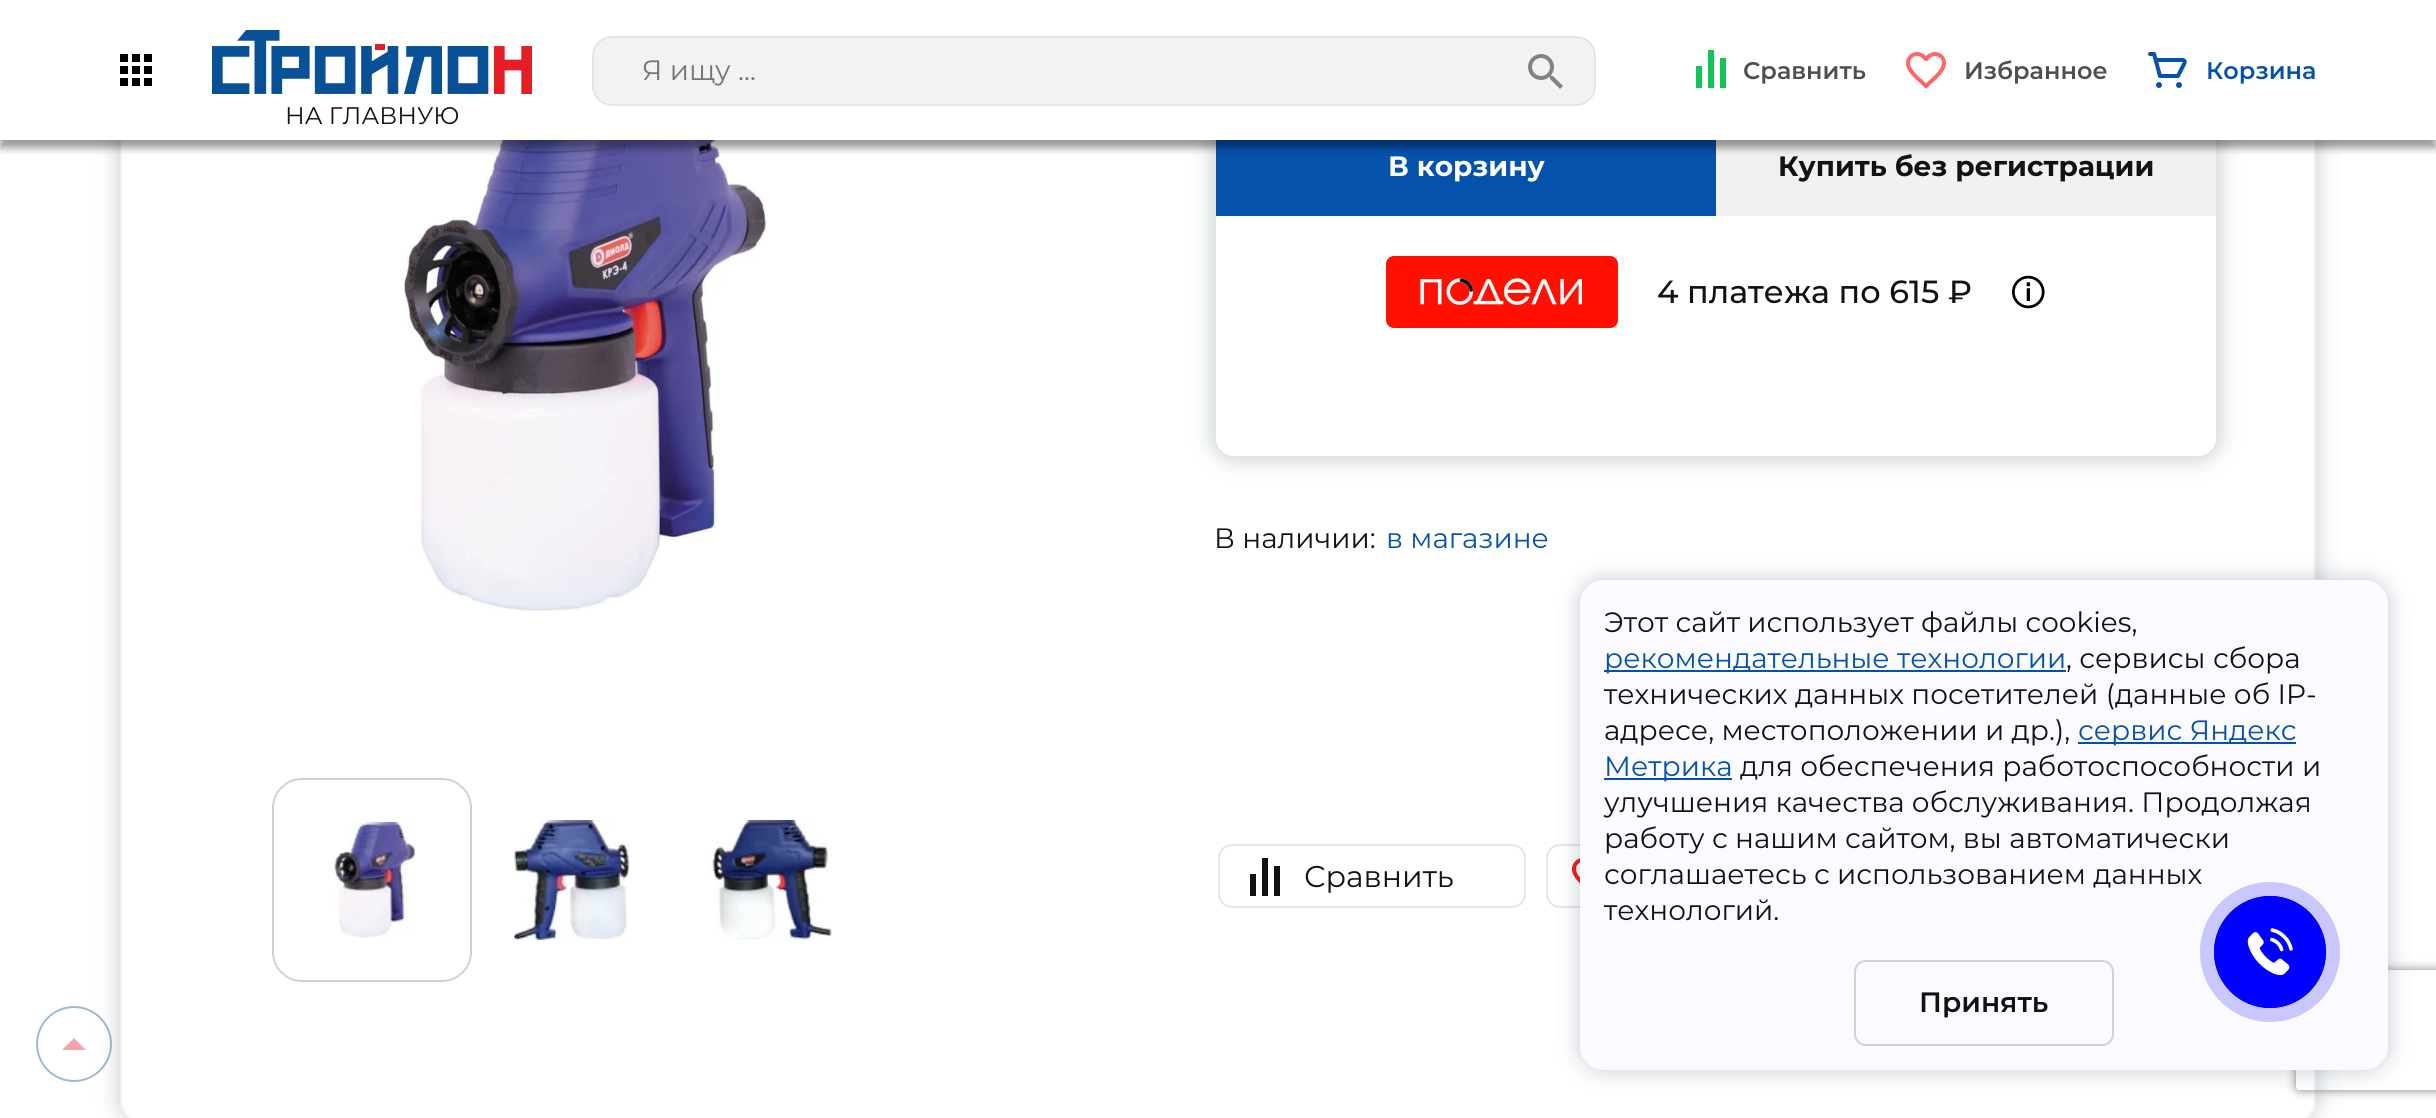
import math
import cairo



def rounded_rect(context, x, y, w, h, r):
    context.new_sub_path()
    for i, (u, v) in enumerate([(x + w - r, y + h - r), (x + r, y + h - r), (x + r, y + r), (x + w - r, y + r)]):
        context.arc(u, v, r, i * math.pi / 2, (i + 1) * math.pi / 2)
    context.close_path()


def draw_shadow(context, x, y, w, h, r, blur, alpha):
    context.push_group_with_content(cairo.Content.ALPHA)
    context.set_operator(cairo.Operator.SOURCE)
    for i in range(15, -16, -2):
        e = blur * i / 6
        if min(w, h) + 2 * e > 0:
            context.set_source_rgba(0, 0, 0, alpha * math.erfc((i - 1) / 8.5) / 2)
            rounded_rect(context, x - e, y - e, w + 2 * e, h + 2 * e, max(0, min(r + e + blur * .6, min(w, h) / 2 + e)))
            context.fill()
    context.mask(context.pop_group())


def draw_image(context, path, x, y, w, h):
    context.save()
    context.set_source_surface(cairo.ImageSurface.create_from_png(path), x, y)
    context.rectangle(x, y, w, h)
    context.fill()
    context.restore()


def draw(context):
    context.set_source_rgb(1, 1, 1)
    context.paint()
    context.save()
    context.set_fill_rule(cairo.FillRule.EVEN_ODD)
    context.new_path()
    context.move_to(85, 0)
    context.line_to(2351, 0)
    context.line_to(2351, 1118)
    context.line_to(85, 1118)
    context.close_path()
    context.move_to(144, -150)
    context.line_to(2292, -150)
    context.curve_to(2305.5, -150, 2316, -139.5, 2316, -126)
    context.line_to(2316, 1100)
    context.curve_to(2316, 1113.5, 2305.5, 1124, 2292, 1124)
    context.line_to(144, 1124)
    context.curve_to(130.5, 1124, 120, 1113.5, 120, 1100)
    context.line_to(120, -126)
    context.curve_to(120, -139.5, 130.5, -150, 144, -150)
    context.close_path()
    context.clip()
    context.set_source_rgb(34 / 255, 60 / 255, 80 / 255)
    draw_shadow(context, 116, -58, 2204, 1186, 28, 10, 0.2)
    context.restore()
    rounded_rect(context, 121, -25, 2194, 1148, 23)
    context.set_source_rgb(241 / 255, 241 / 255, 241 / 255)
    context.stroke()
    draw_image(context, "images/6.png", 403, 140, 364, 471)
    context.set_source_rgb(34 / 255, 60 / 255, 80 / 255)
    draw_shadow(context, 1210, -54, 1012, 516, 24, 10, 0.2)
    context.set_source_rgb(1, 1, 1)
    rounded_rect(context, 1215, -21, 1002, 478, 19)
    context.fill_preserve()
    context.set_source_rgb(229 / 255, 229 / 255, 229 / 255)
    context.stroke()
    context.set_source_rgb(4 / 255, 82 / 255, 172 / 255)
    context.rectangle(1216, 140, 500, 76)
    context.fill()
    context.set_source_rgb(241 / 255, 241 / 255, 241 / 255)
    context.rectangle(1716, 140, 500, 76)
    context.fill()
    context.set_source_rgb(0, 0, 0)
    draw_shadow(context, 0, 8, 2436, 140, 0, 4, 0.4)
    context.set_source_rgb(1, 1, 1)
    context.rectangle(0, 0, 2436, 140)
    context.fill()
    draw_image(context, "images/1.png", 120, 54, 32, 32)
    context.set_source_rgb(242 / 255, 242 / 255, 242 / 255)
    rounded_rect(context, 593, 37, 1002, 68, 19)
    context.fill_preserve()
    context.set_source_rgb(229 / 255, 229 / 255, 229 / 255)
    context.stroke()
    draw_image(context, "images/2.png", 1528, 54, 35, 35)
    draw_image(context, "images/3.png", 212, 30, 320, 64)
    context.set_source_rgb(15 / 255, 197 / 255, 88 / 255)
    context.new_path()
    context.move_to(1720, 88)
    context.line_to(1720, 58)
    context.line_to(1726, 58)
    context.line_to(1726, 88)
    context.close_path()
    context.move_to(1708, 50)
    context.line_to(1714, 50)
    context.line_to(1714, 88)
    context.line_to(1708, 88)
    context.close_path()
    context.move_to(1696, 66)
    context.line_to(1702, 66)
    context.line_to(1702, 88)
    context.line_to(1696, 88)
    context.close_path()
    context.fill()
    draw_image(context, "images/4.png", 1906, 52, 40, 37)
    draw_image(context, "images/5.png", 2148, 52, 39, 36)
    rounded_rect(context, 273, 779, 198, 202, 29)
    context.set_source_rgb(209 / 255, 209 / 255, 209 / 255)
    context.stroke()
    draw_image(context, "images/7.png", 333, 822, 83, 116)
    draw_image(context, "images/8.png", 513, 820, 117, 120)
    draw_image(context, "images/9.png", 710, 820, 122, 120)
    context.set_source_rgb(1, 16 / 255, 1 / 255)
    rounded_rect(context, 1386, 256, 232, 72, 8)
    context.fill()
    draw_image(context, "images/10.png", 1420, 278, 162, 27)
    draw_image(context, "images/11.png", 2012, 275, 33, 34)
    rounded_rect(context, 1219, 845, 306, 62, 13)
    context.set_source_rgb(229 / 255, 229 / 255, 229 / 255)
    context.stroke()
    context.set_source_rgb(18 / 255, 18 / 255, 18 / 255)
    context.new_path()
    context.move_to(1274, 896)
    context.line_to(1274, 866)
    context.line_to(1280, 866)
    context.line_to(1280, 896)
    context.close_path()
    context.move_to(1262, 858)
    context.line_to(1268, 858)
    context.line_to(1268, 896)
    context.line_to(1262, 896)
    context.close_path()
    context.move_to(1250, 874)
    context.line_to(1256, 874)
    context.line_to(1256, 896)
    context.line_to(1250, 896)
    context.close_path()
    context.fill()
    rounded_rect(context, 1547, 845, 306, 62, 13)
    context.set_source_rgb(229 / 255, 229 / 255, 229 / 255)
    context.stroke()
    draw_image(context, "images/12.png", 1572, 858, 8, 26)
    context.set_source_rgb(34 / 255, 60 / 255, 80 / 255)
    draw_shadow(context, 1576, 576, 816, 498, 28, 10, 0.2)
    context.save()
    context.set_fill_rule(cairo.FillRule.EVEN_ODD)
    context.new_path()
    context.move_to(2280, 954)
    context.line_to(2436, 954)
    context.line_to(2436, 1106)
    context.line_to(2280, 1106)
    context.close_path()
    context.move_to(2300, 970)
    context.line_to(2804, 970)
    context.curve_to(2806, 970, 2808, 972, 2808, 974)
    context.line_to(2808, 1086)
    context.curve_to(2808, 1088, 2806, 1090, 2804, 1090)
    context.line_to(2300, 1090)
    context.curve_to(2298, 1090, 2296, 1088, 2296, 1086)
    context.line_to(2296, 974)
    context.curve_to(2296, 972, 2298, 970, 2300, 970)
    context.close_path()
    context.clip()
    context.set_source_rgb(128 / 255, 128 / 255, 128 / 255)
    draw_shadow(context, 2296, 970, 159, 120, 4, 5, 1)
    context.restore()
    context.set_source_rgb(250 / 255, 250 / 255, 1)
    rounded_rect(context, 1580, 580, 808, 490, 24)
    context.fill()
    context.set_source_rgb(4 / 255, 82 / 255, 172 / 255)
    context.rectangle(1604, 670, 462, 2)
    context.fill()
    context.rectangle(2078, 742, 218, 2)
    context.fill()
    context.rectangle(1604, 778, 128, 2)
    context.fill()
    rounded_rect(context, 1855, 961, 258, 84, 11)
    context.set_source_rgb(209 / 255, 209 / 255, 209 / 255)
    context.stroke()
    context.set_source_rgba(1, 1, 1, 0.4)
    context.arc(74, 1044, 38, 0, 2 * math.pi)
    context.fill()
    context.arc(74, 1044, 37, 0, 2 * math.pi)
    context.set_source_rgba(9 / 255, 81 / 255, 151 / 255, 0.4)
    context.stroke()
    context.set_source_rgb(244 / 255, 165 / 255, 167 / 255)
    context.new_path()
    context.move_to(86, 1050)
    context.line_to(62, 1050)
    context.line_to(74, 1038)
    context.close_path()
    context.fill()
    context.select_font_face("Montserrat")
    context.set_font_size(28)
    context.set_source_rgb(117 / 255, 117 / 255, 117 / 255)
    context.move_to(642, 80)
    context.show_text("Я ищу ...")
    context.set_font_size(24)
    context.set_source_rgb(18 / 255, 18 / 255, 18 / 255)
    context.move_to(285, 124)
    context.show_text("НА ГЛАВНУЮ")
    context.select_font_face("Montserrat SemiBold")
    context.set_source_rgb(79 / 255, 79 / 255, 79 / 255)
    context.move_to(1743, 79)
    context.show_text("Сравнить")
    context.move_to(1964, 79)
    context.show_text("Избранное")
    context.set_source_rgb(4 / 255, 82 / 255, 172 / 255)
    context.move_to(2206, 79)
    context.show_text("Корзина")
    context.select_font_face("Montserrat", cairo.FontSlant.NORMAL, cairo.FontWeight.BOLD)
    context.set_font_size(28)
    context.set_source_rgb(1, 1, 1)
    context.move_to(1388, 176)
    context.show_text("В корзину")
    context.set_source_rgb(18 / 255, 18 / 255, 18 / 255)
    context.move_to(1778, 176)
    context.show_text("Купить без регистрации")
    context.select_font_face("Montserrat Medium")
    context.set_font_size(32)
    context.move_to(1657, 303)
    context.show_text("4 платежа по 615")
    context.select_font_face("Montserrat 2 Medium")
    context.move_to(1948, 303)
    context.show_text("₽")
    context.select_font_face("Montserrat")
    context.set_font_size(28)
    context.move_to(1214, 548)
    context.show_text("В наличии:")
    context.set_source_rgb(4 / 255, 82 / 255, 178 / 255)
    context.move_to(1386, 548)
    context.show_text("в магазине")
    context.set_font_size(30)
    context.set_source_rgb(18 / 255, 18 / 255, 18 / 255)
    context.move_to(1304, 887)
    context.show_text("Сравнить")
    context.set_font_size(28)
    context.move_to(1604, 632)
    context.show_text("Этот сайт использует файлы cookies,")
    context.set_source_rgb(4 / 255, 82 / 255, 172 / 255)
    context.move_to(1604, 668)
    context.show_text("рекомендательные технологии")
    context.set_source_rgb(18 / 255, 18 / 255, 18 / 255)
    context.move_to(2066, 668)
    context.show_text(", сервисы сбора")
    context.move_to(1604, 704)
    context.show_text("технических данных посетителей (данные об IP-")
    context.move_to(1604, 740)
    context.show_text("адресе, местоположении и др.),")
    context.set_source_rgb(4 / 255, 82 / 255, 172 / 255)
    context.move_to(2078, 740)
    context.show_text("сервис Яндекс")
    context.move_to(1604, 776)
    context.show_text("Метрика")
    context.set_source_rgb(18 / 255, 18 / 255, 18 / 255)
    context.move_to(1740, 776)
    context.show_text("для обеспечения работоспособности и")
    context.move_to(1604, 812)
    context.show_text("улучшения качества обслуживания. Продолжая")
    context.move_to(1604, 848)
    context.show_text("работу с нашим сайтом, вы автоматически")
    context.move_to(1604, 884)
    context.show_text("соглашаетесь с использованием данных")
    context.move_to(1604, 920)
    context.show_text("технологий.")
    context.select_font_face("Montserrat SemiBold")
    context.move_to(1919, 1012)
    context.show_text("Принять")
    context.set_source_rgb(200 / 255, 200 / 255, 1)
    context.new_path()
    context.arc(2270, 952, 70, 0, 2 * math.pi)
    context.fill()
    context.arc(2270, 952, 55, 0, 2 * math.pi)
    context.set_source_rgb(0, 0, 1)
    context.stroke()
    context.arc(2270, 952, 56, 0, 2 * math.pi)
    context.fill()
    draw_image(context, "images/13.png", 2247, 928, 46, 48)


surface = cairo.ImageSurface(cairo.Format.RGB24, 2436, 1118)
context = cairo.Context(surface)
options = cairo.FontOptions()
options.set_hint_metrics(cairo.HintMetrics.OFF)
options.set_hint_style(cairo.HintStyle.NONE)
context.set_font_options(options)
context.set_miter_limit(4)
draw(context)
surface.write_to_png("out.png")
